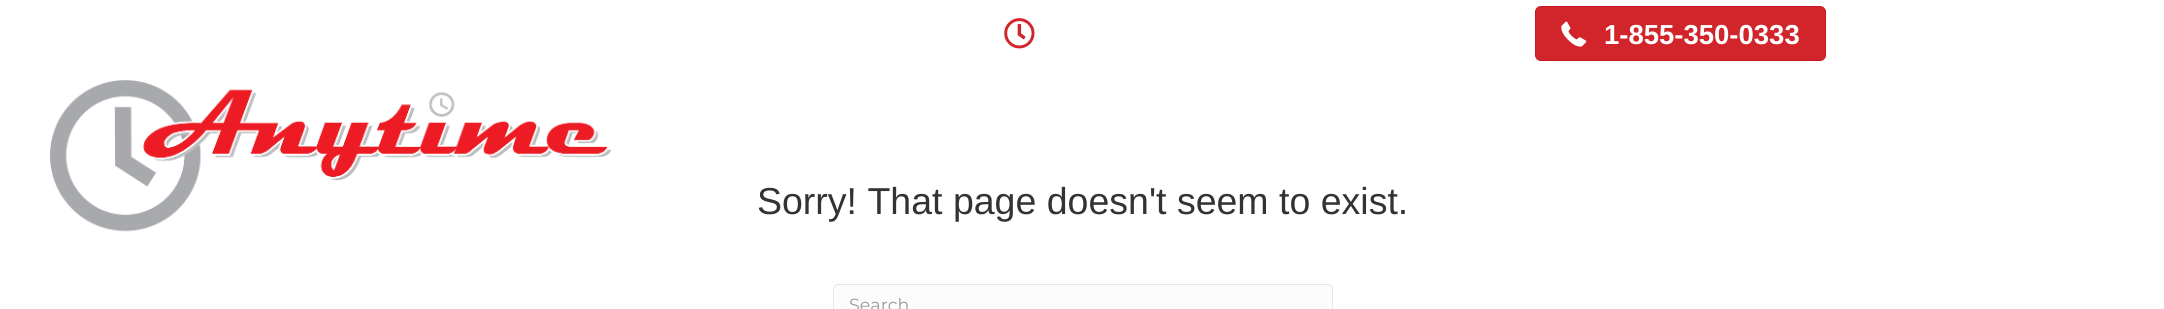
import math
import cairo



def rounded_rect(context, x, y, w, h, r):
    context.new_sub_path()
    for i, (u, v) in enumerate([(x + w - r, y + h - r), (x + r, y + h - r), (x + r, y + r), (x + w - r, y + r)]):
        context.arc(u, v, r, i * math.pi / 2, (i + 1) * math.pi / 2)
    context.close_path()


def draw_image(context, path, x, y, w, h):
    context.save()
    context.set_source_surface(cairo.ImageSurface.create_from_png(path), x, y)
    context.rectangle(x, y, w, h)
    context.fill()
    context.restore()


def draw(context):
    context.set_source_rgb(1, 1, 1)
    context.paint()
    draw_image(context, "images/1.png", 1004, 18, 31, 31)
    context.set_source_rgb(210 / 255, 37 / 255, 43 / 255)
    rounded_rect(context, 1535.5, 6.5, 290, 54, 5.5)
    context.fill_preserve()
    context.set_source_rgb(198 / 255, 25 / 255, 31 / 255)
    context.set_line_width(1)
    context.stroke()
    draw_image(context, "images/2.png", 1561, 21, 26, 26)
    draw_image(context, "images/3.png", 50, 80, 562, 152)
    context.set_source_rgb(252 / 255, 252 / 255, 252 / 255)
    rounded_rect(context, 833.5, 284.5, 499, 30, 4.5)
    context.fill_preserve()
    context.set_source_rgb(230 / 255, 230 / 255, 230 / 255)
    context.stroke()
    context.select_font_face("Liberation Sans", cairo.FontSlant.NORMAL, cairo.FontWeight.BOLD)
    context.set_font_size(27.5)
    context.set_source_rgb(1, 1, 1)
    context.move_to(1604, 44)
    context.show_text("1-855-350-0333")
    context.select_font_face("Liberation Sans")
    context.set_font_size(37.5)
    context.set_source_rgb(51 / 255, 51 / 255, 51 / 255)
    context.move_to(757, 214)
    context.show_text("Sorry! That page doesn't seem to exist.")
    context.select_font_face("Montserrat")
    context.set_font_size(17.5)
    context.set_source_rgb(155 / 255, 155 / 255, 155 / 255)
    context.move_to(849, 311)
    context.show_text("Search")


surface = cairo.ImageSurface(cairo.Format.RGB24, 2164, 309)
context = cairo.Context(surface)
options = cairo.FontOptions()
options.set_hint_metrics(cairo.HintMetrics.OFF)
options.set_hint_style(cairo.HintStyle.NONE)
context.set_font_options(options)
context.set_miter_limit(4)
draw(context)
surface.write_to_png("out.png")
